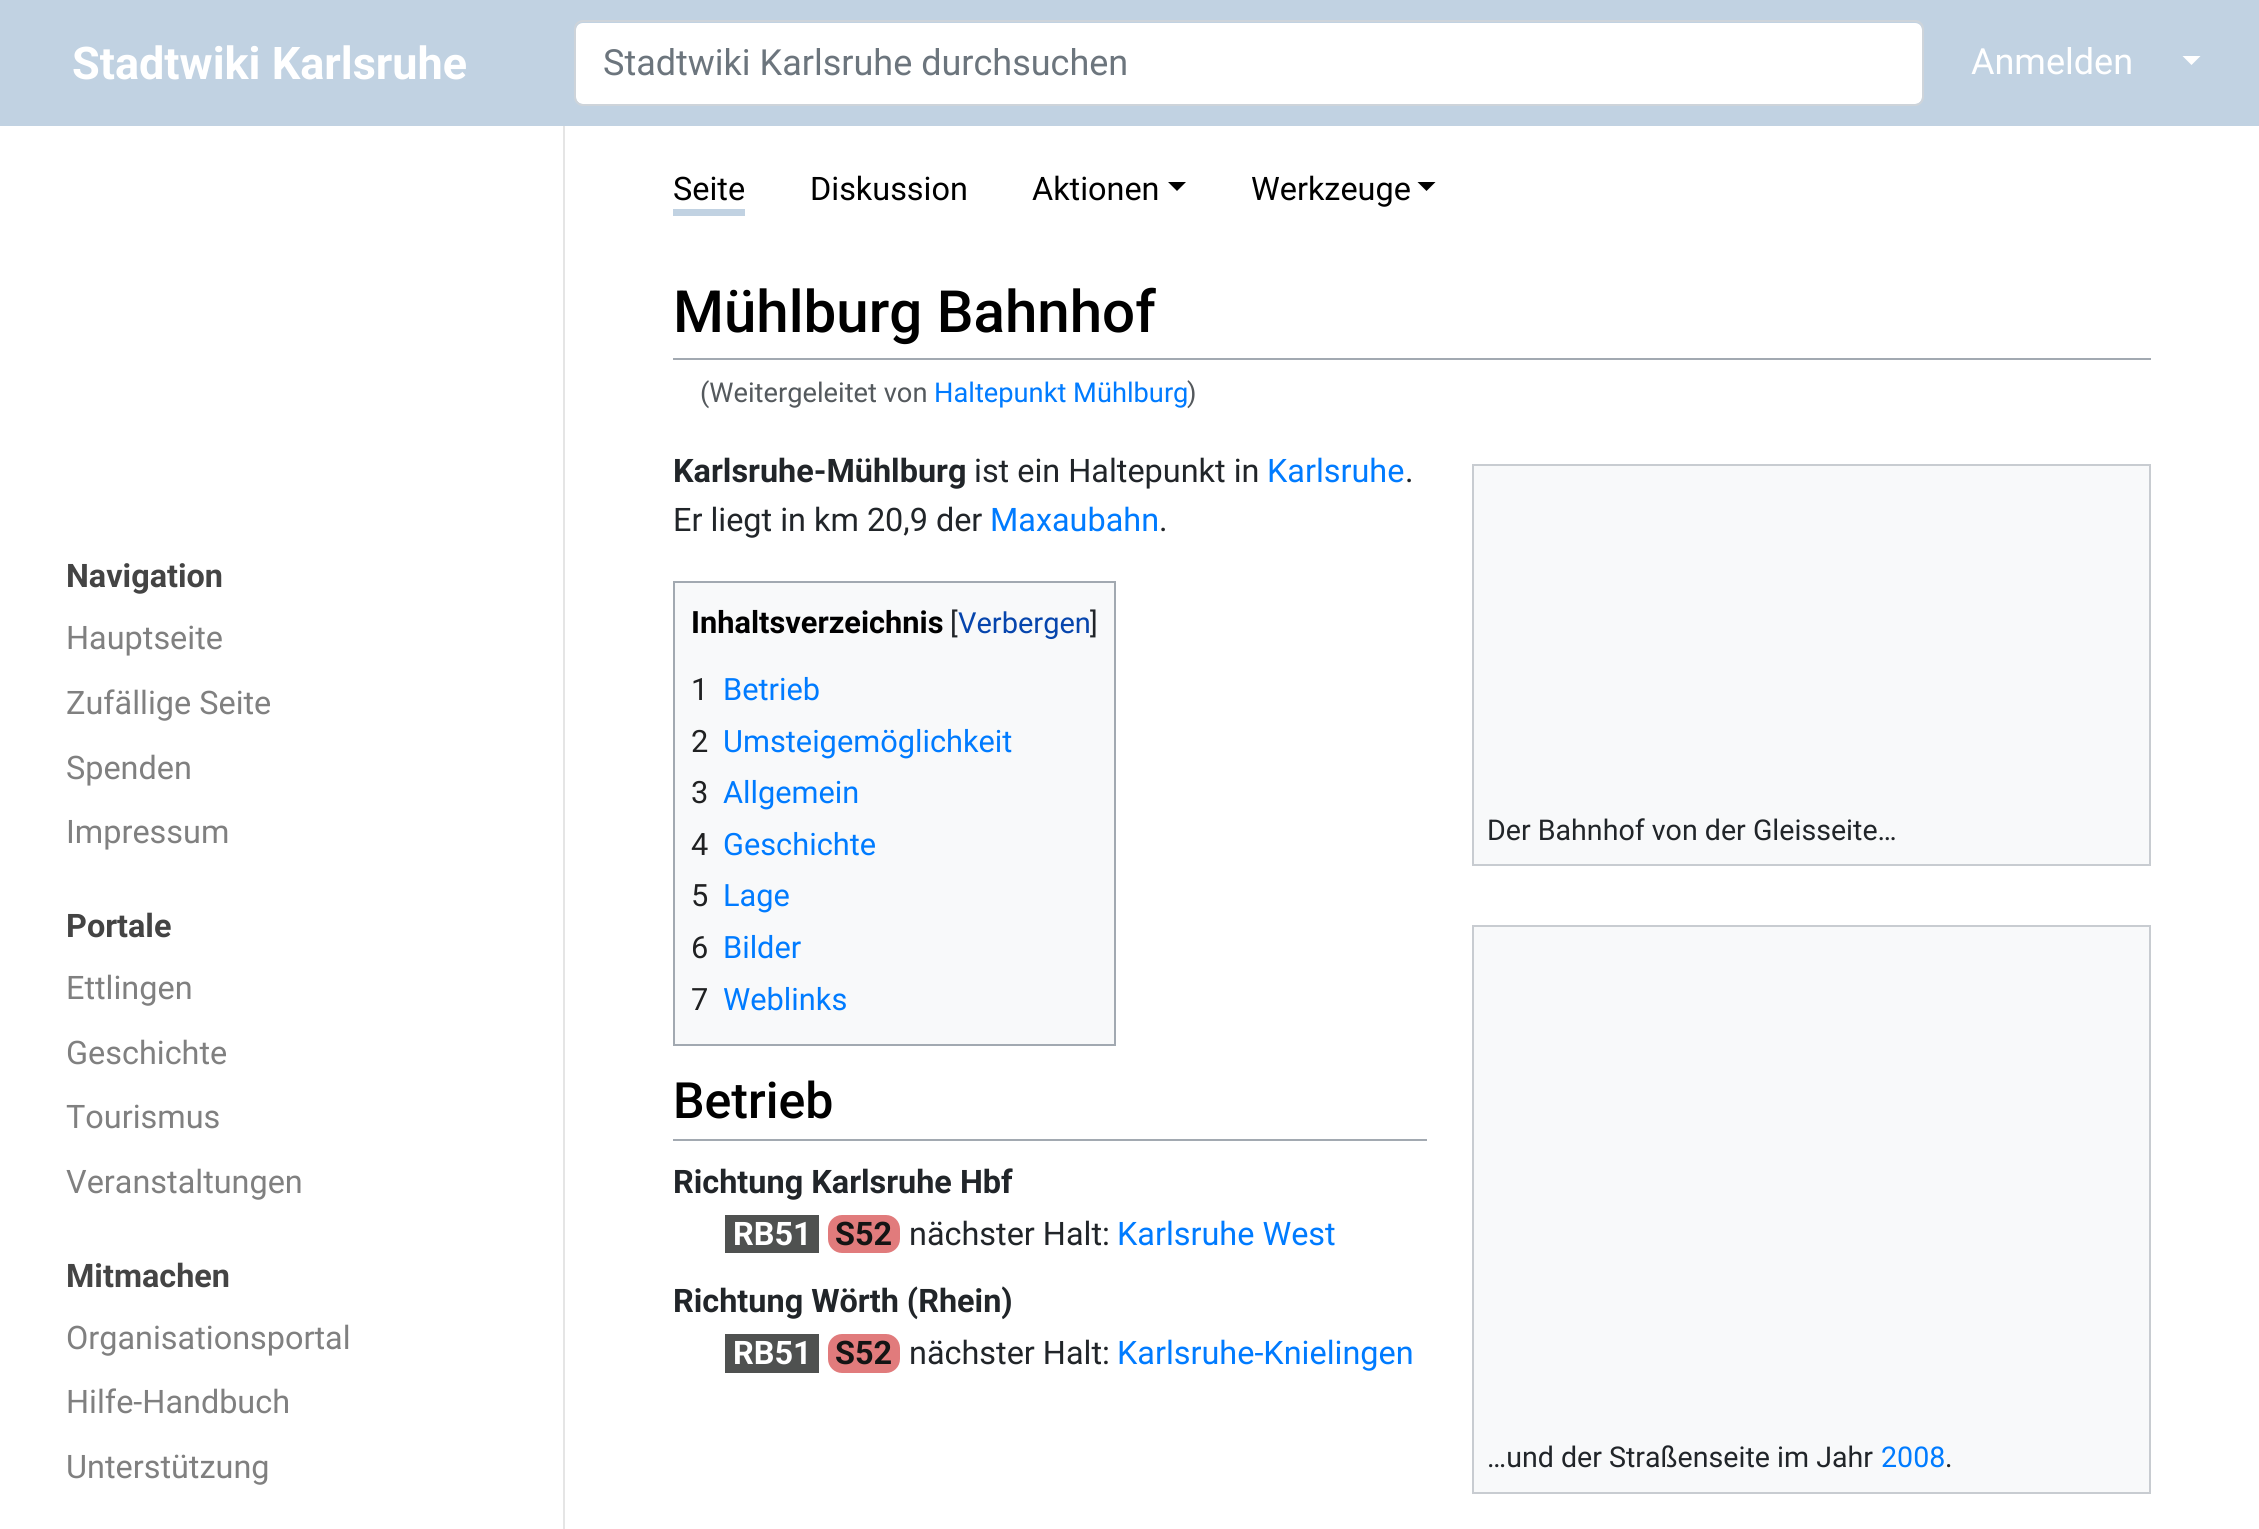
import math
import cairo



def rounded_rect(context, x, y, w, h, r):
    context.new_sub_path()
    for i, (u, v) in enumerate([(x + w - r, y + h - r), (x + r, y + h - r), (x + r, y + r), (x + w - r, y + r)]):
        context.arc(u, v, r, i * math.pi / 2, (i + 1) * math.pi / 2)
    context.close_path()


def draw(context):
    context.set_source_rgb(1, 1, 1)
    context.paint()
    context.set_source_rgb(193 / 255, 210 / 255, 226 / 255)
    context.rectangle(0, 0, 2259, 126)
    context.fill()
    context.set_source_rgb(1, 1, 1)
    rounded_rect(context, 576, 23, 1346, 81, 7)
    context.fill()
    rounded_rect(context, 575, 21, 1348, 84, 8)
    context.set_source_rgb(206 / 255, 212 / 255, 218 / 255)
    context.stroke()
    context.set_source_rgb(1, 1, 1)
    context.new_path()
    context.move_to(2182.5, 56)
    context.line_to(2200.5, 56)
    context.line_to(2191.5, 65)
    context.close_path()
    context.fill()
    context.set_source_rgb(229 / 255, 229 / 255, 229 / 255)
    context.rectangle(563, 126, 2, 1403)
    context.fill()
    context.set_source_rgb(193 / 255, 210 / 255, 226 / 255)
    context.rectangle(673, 209, 72, 7)
    context.fill()
    context.set_source_rgb(0, 0, 0)
    context.new_path()
    context.move_to(1168, 182)
    context.line_to(1186, 182)
    context.line_to(1177, 191)
    context.close_path()
    context.fill()
    context.new_path()
    context.move_to(1417.5, 182)
    context.line_to(1435.5, 182)
    context.line_to(1426.5, 191)
    context.close_path()
    context.fill()
    context.set_source_rgb(162 / 255, 169 / 255, 177 / 255)
    context.rectangle(673, 358, 1478, 2)
    context.fill()
    context.set_source_rgb(248 / 255, 249 / 255, 250 / 255)
    context.rectangle(674, 582, 441, 463)
    context.fill_preserve()
    context.set_source_rgb(162 / 255, 169 / 255, 177 / 255)
    context.stroke()
    context.set_source_rgb(248 / 255, 249 / 255, 250 / 255)
    context.rectangle(1473, 465, 677, 400)
    context.fill_preserve()
    context.set_source_rgb(200 / 255, 204 / 255, 209 / 255)
    context.stroke()
    context.set_source_rgb(162 / 255, 169 / 255, 177 / 255)
    context.rectangle(673, 1139, 754, 2)
    context.fill()
    context.set_source_rgb(79 / 255, 81 / 255, 80 / 255)
    context.rectangle(725, 1215, 94, 38)
    context.fill()
    context.set_source_rgb(225 / 255, 123 / 255, 124 / 255)
    rounded_rect(context, 828, 1215, 72, 38, 14)
    context.fill()
    context.set_source_rgb(79 / 255, 81 / 255, 80 / 255)
    context.rectangle(725, 1334, 94, 39)
    context.fill()
    context.set_source_rgb(225 / 255, 123 / 255, 124 / 255)
    rounded_rect(context, 828, 1334, 72, 39, 14)
    context.fill()
    context.set_source_rgb(248 / 255, 249 / 255, 250 / 255)
    context.rectangle(1473, 926, 677, 567)
    context.fill_preserve()
    context.set_source_rgb(200 / 255, 204 / 255, 209 / 255)
    context.stroke()
    context.select_font_face("Roboto", cairo.FontSlant.NORMAL, cairo.FontWeight.BOLD)
    context.set_font_size(45)
    context.set_source_rgb(1, 1, 1)
    context.move_to(72, 79)
    context.show_text("Stadtwiki Karlsruhe")
    context.select_font_face("Roboto")
    context.set_font_size(36)
    context.set_source_rgb(108 / 255, 117 / 255, 125 / 255)
    context.move_to(603, 75)
    context.show_text("Stadtwiki Karlsruhe durchsuchen")
    context.set_source_rgb(1, 1, 1)
    context.move_to(1971, 74)
    context.show_text("Anmelden")
    context.select_font_face("Roboto", cairo.FontSlant.NORMAL, cairo.FontWeight.BOLD)
    context.set_font_size(32.4)
    context.set_source_rgb(68 / 255, 68 / 255, 68 / 255)
    context.move_to(66, 587)
    context.show_text("Navigation")
    context.select_font_face("Roboto")
    context.set_source_rgb(128 / 255, 128 / 255, 128 / 255)
    context.move_to(66, 649)
    context.show_text("Hauptseite")
    context.move_to(66, 714)
    context.show_text("Zufällige Seite")
    context.move_to(66, 779)
    context.show_text("Spenden")
    context.move_to(66, 843)
    context.show_text("Impressum")
    context.select_font_face("Roboto", cairo.FontSlant.NORMAL, cairo.FontWeight.BOLD)
    context.set_source_rgb(68 / 255, 68 / 255, 68 / 255)
    context.move_to(66, 937)
    context.show_text("Portale")
    context.select_font_face("Roboto")
    context.set_source_rgb(128 / 255, 128 / 255, 128 / 255)
    context.move_to(66, 999)
    context.show_text("Ettlingen")
    context.move_to(66, 1064)
    context.show_text("Geschichte")
    context.move_to(66, 1128)
    context.show_text("Tourismus")
    context.move_to(66, 1193)
    context.show_text("Veranstaltungen")
    context.select_font_face("Roboto", cairo.FontSlant.NORMAL, cairo.FontWeight.BOLD)
    context.set_source_rgb(68 / 255, 68 / 255, 68 / 255)
    context.move_to(66, 1287)
    context.show_text("Mitmachen")
    context.select_font_face("Roboto")
    context.set_source_rgb(128 / 255, 128 / 255, 128 / 255)
    context.move_to(66, 1349)
    context.show_text("Organisationsportal")
    context.move_to(66, 1413)
    context.show_text("Hilfe-Handbuch")
    context.move_to(66, 1478)
    context.show_text("Unterstützung")
    context.set_source_rgb(0, 0, 0)
    context.move_to(673, 200)
    context.show_text("Seite")
    context.move_to(810, 200)
    context.show_text("Diskussion")
    context.move_to(1032, 200)
    context.show_text("Aktionen")
    context.move_to(1251, 200)
    context.show_text("Werkzeuge")
    context.select_font_face("Roboto Medium")
    context.set_font_size(58.25)
    context.move_to(673, 332)
    context.show_text("Mühlburg Bahnhof")
    context.select_font_face("Roboto")
    context.set_font_size(27.25)
    context.set_source_rgb(84 / 255, 89 / 255, 93 / 255)
    context.move_to(700, 402)
    context.show_text("(Weitergeleitet von")
    context.set_source_rgb(0, 123 / 255, 1)
    context.move_to(934, 402)
    context.show_text("Haltepunkt Mühlburg")
    context.set_source_rgb(84 / 255, 89 / 255, 93 / 255)
    context.move_to(1187, 402)
    context.show_text(")")
    context.select_font_face("Roboto", cairo.FontSlant.NORMAL, cairo.FontWeight.BOLD)
    context.set_font_size(32.4)
    context.set_source_rgb(33 / 255, 37 / 255, 41 / 255)
    context.move_to(673, 482)
    context.show_text("Karlsruhe-Mühlburg")
    context.select_font_face("Roboto")
    context.move_to(974, 482)
    context.show_text("ist ein Haltepunkt in")
    context.set_source_rgb(0, 123 / 255, 1)
    context.move_to(1267, 482)
    context.show_text("Karlsruhe")
    context.set_source_rgb(33 / 255, 37 / 255, 41 / 255)
    context.move_to(1405, 482)
    context.show_text(".")
    context.move_to(673, 531)
    context.show_text("Er liegt in km 20,9 der")
    context.set_source_rgb(0, 123 / 255, 1)
    context.move_to(990, 531)
    context.show_text("Maxaubahn")
    context.set_source_rgb(33 / 255, 37 / 255, 41 / 255)
    context.move_to(1159, 531)
    context.show_text(".")
    context.select_font_face("Roboto", cairo.FontSlant.NORMAL, cairo.FontWeight.BOLD)
    context.set_font_size(30.75)
    context.set_source_rgb(0, 0, 0)
    context.move_to(691, 633)
    context.show_text("Inhaltsverzeichnis")
    context.select_font_face("Roboto")
    context.set_font_size(29)
    context.set_source_rgb(33 / 255, 37 / 255, 41 / 255)
    context.move_to(950, 633)
    context.show_text("[")
    context.set_source_rgb(6 / 255, 69 / 255, 173 / 255)
    context.move_to(958, 633)
    context.show_text("Verbergen")
    context.set_source_rgb(33 / 255, 37 / 255, 41 / 255)
    context.move_to(1090, 633)
    context.show_text("]")
    context.set_font_size(30.75)
    context.set_source_rgb(32 / 255, 33 / 255, 34 / 255)
    context.move_to(691, 700)
    context.show_text("1")
    context.set_source_rgb(0, 123 / 255, 1)
    context.move_to(723, 700)
    context.show_text("Betrieb")
    context.set_source_rgb(32 / 255, 33 / 255, 34 / 255)
    context.move_to(691, 752)
    context.show_text("2")
    context.set_source_rgb(0, 123 / 255, 1)
    context.move_to(723, 752)
    context.show_text("Umsteigemöglichkeit")
    context.set_source_rgb(32 / 255, 33 / 255, 34 / 255)
    context.move_to(691, 803)
    context.show_text("3")
    context.set_source_rgb(0, 123 / 255, 1)
    context.move_to(723, 803)
    context.show_text("Allgemein")
    context.set_source_rgb(32 / 255, 33 / 255, 34 / 255)
    context.move_to(691, 855)
    context.show_text("4")
    context.set_source_rgb(0, 123 / 255, 1)
    context.move_to(723, 855)
    context.show_text("Geschichte")
    context.set_source_rgb(32 / 255, 33 / 255, 34 / 255)
    context.move_to(691, 906)
    context.show_text("5")
    context.set_source_rgb(0, 123 / 255, 1)
    context.move_to(723, 906)
    context.show_text("Lage")
    context.set_source_rgb(32 / 255, 33 / 255, 34 / 255)
    context.move_to(691, 958)
    context.show_text("6")
    context.set_source_rgb(0, 123 / 255, 1)
    context.move_to(723, 958)
    context.show_text("Bilder")
    context.set_source_rgb(32 / 255, 33 / 255, 34 / 255)
    context.move_to(691, 1010)
    context.show_text("7")
    context.set_source_rgb(0, 123 / 255, 1)
    context.move_to(723, 1010)
    context.show_text("Weblinks")
    context.set_font_size(28.6)
    context.set_source_rgb(33 / 255, 37 / 255, 41 / 255)
    context.move_to(1487, 840)
    context.show_text("Der Bahnhof von der Gleisseite…")
    context.select_font_face("Roboto Medium")
    context.set_font_size(50)
    context.set_source_rgb(0, 0, 0)
    context.move_to(673, 1118)
    context.show_text("Betrieb")
    context.select_font_face("Roboto", cairo.FontSlant.NORMAL, cairo.FontWeight.BOLD)
    context.set_font_size(32.4)
    context.set_source_rgb(33 / 255, 37 / 255, 41 / 255)
    context.move_to(673, 1193)
    context.show_text("Richtung Karlsruhe Hbf")
    context.set_source_rgb(1, 1, 1)
    context.move_to(733, 1245)
    context.show_text("RB51")
    context.set_source_rgb(20 / 255, 20 / 255, 20 / 255)
    context.move_to(835, 1245)
    context.show_text("S52")
    context.select_font_face("Roboto")
    context.set_source_rgb(33 / 255, 37 / 255, 41 / 255)
    context.move_to(909, 1245)
    context.show_text("nächster Halt:")
    context.set_source_rgb(0, 123 / 255, 1)
    context.move_to(1117, 1245)
    context.show_text("Karlsruhe West")
    context.select_font_face("Roboto", cairo.FontSlant.NORMAL, cairo.FontWeight.BOLD)
    context.set_source_rgb(33 / 255, 37 / 255, 41 / 255)
    context.move_to(673, 1312)
    context.show_text("Richtung Wörth (Rhein)")
    context.set_source_rgb(1, 1, 1)
    context.move_to(733, 1364)
    context.show_text("RB51")
    context.set_source_rgb(20 / 255, 20 / 255, 20 / 255)
    context.move_to(835, 1364)
    context.show_text("S52")
    context.select_font_face("Roboto")
    context.set_source_rgb(33 / 255, 37 / 255, 41 / 255)
    context.move_to(909, 1364)
    context.show_text("nächster Halt:")
    context.set_source_rgb(0, 123 / 255, 1)
    context.move_to(1117, 1364)
    context.show_text("Karlsruhe-Knielingen")
    context.set_font_size(28.6)
    context.set_source_rgb(33 / 255, 37 / 255, 41 / 255)
    context.move_to(1487, 1467)
    context.show_text("…und der Straßenseite im Jahr")
    context.set_source_rgb(0, 123 / 255, 1)
    context.move_to(1881, 1467)
    context.show_text("2008")
    context.set_source_rgb(33 / 255, 37 / 255, 41 / 255)
    context.move_to(1945, 1467)
    context.show_text(".")


surface = cairo.ImageSurface(cairo.Format.RGB24, 2259, 1529)
context = cairo.Context(surface)
options = cairo.FontOptions()
options.set_hint_metrics(cairo.HintMetrics.OFF)
options.set_hint_style(cairo.HintStyle.NONE)
context.set_font_options(options)
context.set_miter_limit(4)
draw(context)
surface.write_to_png("out.png")
